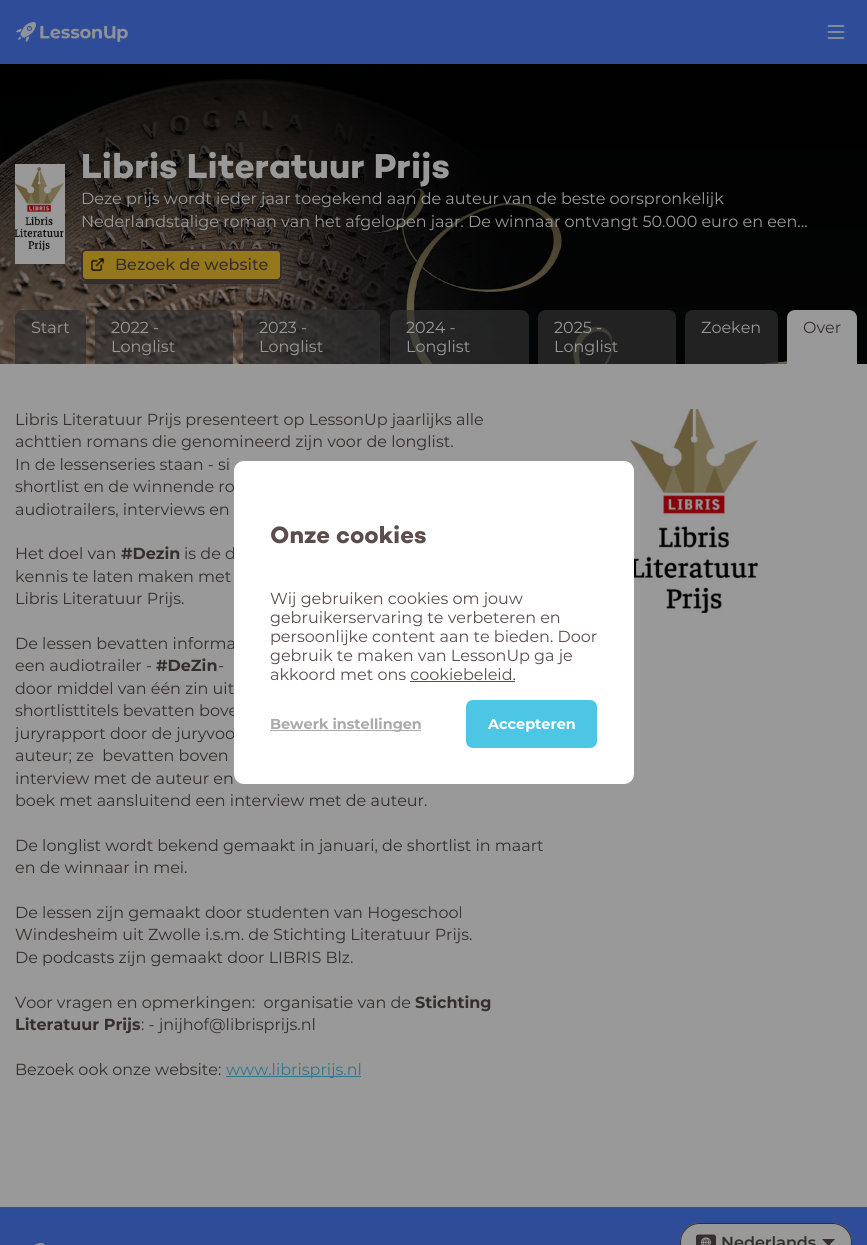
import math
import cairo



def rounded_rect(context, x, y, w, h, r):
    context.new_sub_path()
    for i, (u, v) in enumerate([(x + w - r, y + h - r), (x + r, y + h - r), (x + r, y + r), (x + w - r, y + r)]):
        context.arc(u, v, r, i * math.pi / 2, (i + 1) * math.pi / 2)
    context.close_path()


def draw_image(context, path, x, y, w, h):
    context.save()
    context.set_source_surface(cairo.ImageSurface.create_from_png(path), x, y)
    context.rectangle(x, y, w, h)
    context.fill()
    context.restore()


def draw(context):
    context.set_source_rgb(153 / 255, 153 / 255, 153 / 255)
    context.paint()
    context.set_source_rgb(47 / 255, 76 / 255, 153 / 255)
    context.rectangle(0, 0, 867, 64)
    context.fill()
    draw_image(context, "images/1.png", 16, 22, 112, 20)
    context.new_path()
    context.move_to(828.5, 26)
    context.line_to(843.5, 26)
    context.move_to(828.5, 32)
    context.line_to(843.5, 32)
    context.move_to(828.5, 38)
    context.line_to(843.5, 38)
    context.set_source_rgb(143 / 255, 146 / 255, 153 / 255)
    context.set_line_width(1.7)
    context.set_line_cap(cairo.LineCap.ROUND)
    context.set_line_join(cairo.LineJoin.ROUND)
    context.stroke()
    draw_image(context, "images/2.png", 0, 64, 867, 300)
    draw_image(context, "images/3.png", 15, 164, 50, 100)
    context.set_source_rgb(54 / 255, 46 / 255, 46 / 255)
    context.new_path()
    context.move_to(81, 276)
    context.line_to(81, 279)
    context.curve_to(81, 282, 83, 284, 86, 284)
    context.line_to(277, 284)
    context.curve_to(280, 284, 282, 282, 282, 279)
    context.line_to(282, 276)
    context.curve_to(282, 279, 280, 281, 277, 281)
    context.line_to(86, 281)
    context.curve_to(83, 281, 81, 279, 81, 276)
    context.close_path()
    context.fill()
    context.set_source_rgb(149 / 255, 120 / 255, 27 / 255)
    rounded_rect(context, 81, 249, 201, 32, 5)
    context.fill()
    draw_image(context, "images/4.png", 91, 258, 14, 14)
    rounded_rect(context, 82, 250, 199, 30, 4)
    context.set_source_rgb(54 / 255, 46 / 255, 46 / 255)
    context.set_line_width(2)
    context.set_line_cap(cairo.LineCap.BUTT)
    context.set_line_join(cairo.LineJoin.MITER)
    context.stroke()
    context.set_source_rgba(48 / 255, 48 / 255, 48 / 255, 0.7)
    context.new_path()
    context.move_to(23, 310)
    context.line_to(78, 310)
    context.curve_to(82.5, 310, 86, 313.5, 86, 318)
    context.line_to(86, 364)
    context.line_to(15, 364)
    context.line_to(15, 318)
    context.curve_to(15, 313.5, 18.5, 310, 23, 310)
    context.close_path()
    context.fill()
    context.new_path()
    context.move_to(103, 310)
    context.line_to(225, 310)
    context.curve_to(229.5, 310, 233, 313.5, 233, 318)
    context.line_to(233, 364)
    context.line_to(95, 364)
    context.line_to(95, 318)
    context.curve_to(95, 313.5, 98.5, 310, 103, 310)
    context.close_path()
    context.fill()
    context.new_path()
    context.move_to(251, 310)
    context.line_to(372, 310)
    context.curve_to(376.5, 310, 380, 313.5, 380, 318)
    context.line_to(380, 364)
    context.line_to(243, 364)
    context.line_to(243, 318)
    context.curve_to(243, 313.5, 246.5, 310, 251, 310)
    context.close_path()
    context.fill()
    context.new_path()
    context.move_to(398, 310)
    context.line_to(521, 310)
    context.curve_to(525.5, 310, 529, 313.5, 529, 318)
    context.line_to(529, 364)
    context.line_to(390, 364)
    context.line_to(390, 318)
    context.curve_to(390, 313.5, 393.5, 310, 398, 310)
    context.close_path()
    context.fill()
    context.new_path()
    context.move_to(546, 310)
    context.line_to(668, 310)
    context.curve_to(672.5, 310, 676, 313.5, 676, 318)
    context.line_to(676, 364)
    context.line_to(538, 364)
    context.line_to(538, 318)
    context.curve_to(538, 313.5, 541.5, 310, 546, 310)
    context.close_path()
    context.fill()
    context.new_path()
    context.move_to(693, 310)
    context.line_to(770, 310)
    context.curve_to(774.5, 310, 778, 313.5, 778, 318)
    context.line_to(778, 364)
    context.line_to(685, 364)
    context.line_to(685, 318)
    context.curve_to(685, 313.5, 688.5, 310, 693, 310)
    context.close_path()
    context.fill()
    context.set_source_rgb(153 / 255, 153 / 255, 153 / 255)
    context.new_path()
    context.move_to(795, 310)
    context.line_to(849, 310)
    context.curve_to(853.5, 310, 857, 313.5, 857, 318)
    context.line_to(857, 364)
    context.line_to(787, 364)
    context.line_to(787, 318)
    context.curve_to(787, 313.5, 790.5, 310, 795, 310)
    context.close_path()
    context.fill()
    context.set_source_rgb(46 / 255, 119 / 255, 138 / 255)
    context.rectangle(226, 1076, 135, 1)
    context.fill()
    draw_image(context, "images/5.png", 630, 409, 128, 204)
    context.set_source_rgb(47 / 255, 76 / 255, 153 / 255)
    context.rectangle(0, 1207, 867, 38)
    context.fill()
    draw_image(context, "images/6.png", 34, 1243, 11, 2)
    context.set_source_rgb(153 / 255, 153 / 255, 153 / 255)
    rounded_rect(context, 680, 1223, 172, 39, 19.5)
    context.fill()
    draw_image(context, "images/7.png", 696, 1234, 20, 11)
    rounded_rect(context, 680.5, 1223.5, 171, 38, 19)
    context.set_source_rgb(54 / 255, 46 / 255, 46 / 255)
    context.set_line_width(1)
    context.stroke()
    context.set_fill_rule(cairo.FillRule.EVEN_ODD)
    context.new_path()
    context.move_to(822, 1239)
    context.line_to(835, 1239)
    context.line_to(828.5, 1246)
    context.close_path()
    context.fill()
    context.select_font_face("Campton", cairo.FontSlant.NORMAL, cairo.FontWeight.BOLD)
    context.set_font_size(35.25)
    context.set_source_rgb(153 / 255, 153 / 255, 153 / 255)
    context.move_to(81, 178)
    context.show_text("Libris Literatuur Prijs")
    context.select_font_face("Montserrat")
    context.set_font_size(16)
    context.move_to(81, 204)
    context.show_text("Deze prijs wordt ieder jaar toegekend aan de auteur van de beste oorspronkelijk")
    context.move_to(81, 227)
    context.show_text("Nederlandstalige roman van het afgelopen jaar. De winnaar ontvangt 50.000 euro en een…")
    context.select_font_face("Montserrat Medium")
    context.set_source_rgb(54 / 255, 46 / 255, 46 / 255)
    context.move_to(115, 270)
    context.show_text("Bezoek de website")
    context.select_font_face("Montserrat")
    context.set_source_rgb(153 / 255, 153 / 255, 153 / 255)
    context.move_to(31, 333)
    context.show_text("Start")
    context.move_to(111, 333)
    context.show_text("2022 -")
    context.move_to(111, 352)
    context.show_text("Longlist")
    context.move_to(259, 333)
    context.show_text("2023 -")
    context.move_to(259, 352)
    context.show_text("Longlist")
    context.move_to(406, 333)
    context.show_text("2024 -")
    context.move_to(406, 352)
    context.show_text("Longlist")
    context.move_to(554, 333)
    context.show_text("2025 -")
    context.move_to(554, 352)
    context.show_text("Longlist")
    context.move_to(701, 333)
    context.show_text("Zoeken")
    context.set_source_rgb(54 / 255, 46 / 255, 46 / 255)
    context.move_to(803, 333)
    context.show_text("Over")
    context.move_to(15, 425)
    context.show_text("Libris Literatuur Prijs presenteert op LessonUp jaarlijks alle")
    context.move_to(15, 447)
    context.show_text("achttien romans die genomineerd zijn voor de longlist.")
    context.move_to(15, 470)
    context.show_text("In de lessenseries staan - si")
    context.move_to(15, 492)
    context.show_text("shortlist en de winnende ro")
    context.move_to(15, 515)
    context.show_text("audiotrailers, interviews en")
    context.move_to(15, 559)
    context.show_text("Het doel van")
    context.select_font_face("Montserrat", cairo.FontSlant.NORMAL, cairo.FontWeight.BOLD)
    context.move_to(121, 559)
    context.show_text("#Dezin")
    context.select_font_face("Montserrat")
    context.move_to(184, 559)
    context.show_text("is de d")
    context.move_to(15, 582)
    context.show_text("kennis te laten maken met")
    context.move_to(15, 604)
    context.show_text("Libris Literatuur Prijs.")
    context.move_to(15, 649)
    context.show_text("De lessen bevatten informa")
    context.move_to(15, 671)
    context.show_text("een audiotrailer -")
    context.select_font_face("Montserrat", cairo.FontSlant.NORMAL, cairo.FontWeight.BOLD)
    context.move_to(156, 671)
    context.show_text("#DeZin")
    context.select_font_face("Montserrat")
    context.move_to(218, 671)
    context.show_text("-")
    context.move_to(15, 694)
    context.show_text("door middel van één zin uit")
    context.move_to(15, 716)
    context.show_text("shortlisttitels bevatten bove")
    context.save()
    context.set_fill_rule(cairo.FillRule.WINDING)
    context.rectangle(15, 409, 533, 672)
    context.clip()
    context.move_to(15, 739)
    context.show_text("juryrapport door de juryvoo")
    context.restore()
    context.move_to(15, 761)
    context.show_text("auteur; ze  bevatten boven")
    context.move_to(15, 784)
    context.show_text("interview met de auteur en")
    context.move_to(15, 806)
    context.show_text("boek met aansluitend een interview met de auteur.")
    context.move_to(15, 851)
    context.show_text("De longlist wordt bekend gemaakt in januari, de shortlist in maart")
    context.move_to(15, 873)
    context.show_text("en de winnaar in mei.")
    context.move_to(15, 918)
    context.show_text("De lessen zijn gemaakt door studenten van Hogeschool")
    context.move_to(15, 940)
    context.show_text("Windesheim uit Zwolle i.s.m. de Stichting Literatuur Prijs.")
    context.move_to(15, 963)
    context.show_text("De podcasts zijn gemaakt door LIBRIS Blz.")
    context.move_to(15, 1008)
    context.show_text("Voor vragen en opmerkingen:  organisatie van de")
    context.select_font_face("Montserrat", cairo.FontSlant.NORMAL, cairo.FontWeight.BOLD)
    context.move_to(415, 1008)
    context.show_text("Stichting")
    context.move_to(15, 1030)
    context.show_text("Literatuur Prijs")
    context.select_font_face("Montserrat")
    context.move_to(141, 1030)
    context.show_text(": - jnijhof@librisprijs.nl")
    context.move_to(15, 1075)
    context.show_text("Bezoek ook onze website:")
    context.set_source_rgb(46 / 255, 119 / 255, 138 / 255)
    context.move_to(226, 1075)
    context.show_text("www.librisprijs.nl")
    context.select_font_face("Montserrat SemiBold")
    context.set_source_rgb(54 / 255, 46 / 255, 46 / 255)
    context.move_to(721, 1248)
    context.show_text("Nederlands")
    context.set_source_rgb(1, 1, 1)
    rounded_rect(context, 234, 461, 400, 323, 10)
    context.fill()
    context.select_font_face("Campton", cairo.FontSlant.NORMAL, cairo.FontWeight.BOLD)
    context.set_font_size(24)
    context.set_source_rgb(90 / 255, 77 / 255, 76 / 255)
    context.move_to(270, 543)
    context.show_text("Onze cookies")
    context.select_font_face("Montserrat")
    context.set_font_size(16)
    context.move_to(270, 604)
    context.show_text("Wij gebruiken cookies om jouw")
    context.move_to(270, 623)
    context.show_text("gebruikerservaring te verbeteren en")
    context.move_to(270, 642)
    context.show_text("persoonlijke content aan te bieden. Door")
    context.move_to(270, 661)
    context.show_text("gebruik te maken van LessonUp ga je")
    context.move_to(270, 680)
    context.show_text("akkoord met ons cookiebeleid.")
    context.rectangle(410, 681, 105, 1)
    context.fill()
    context.set_source_rgb(170 / 255, 170 / 255, 170 / 255)
    context.rectangle(270, 730, 151, 1)
    context.fill()
    context.select_font_face("Montserrat", cairo.FontSlant.NORMAL, cairo.FontWeight.BOLD)
    context.set_font_size(14.4)
    context.move_to(270, 729)
    context.show_text("Bewerk instellingen")
    context.set_source_rgb(77 / 255, 198 / 255, 230 / 255)
    rounded_rect(context, 466, 700, 131, 48, 7)
    context.fill()
    context.set_source_rgb(1, 1, 1)
    context.move_to(488, 729)
    context.show_text("Accepteren")


surface = cairo.ImageSurface(cairo.Format.RGB24, 867, 1245)
context = cairo.Context(surface)
options = cairo.FontOptions()
options.set_hint_metrics(cairo.HintMetrics.OFF)
options.set_hint_style(cairo.HintStyle.NONE)
context.set_font_options(options)
context.set_miter_limit(4)
draw(context)
surface.write_to_png("out.png")
